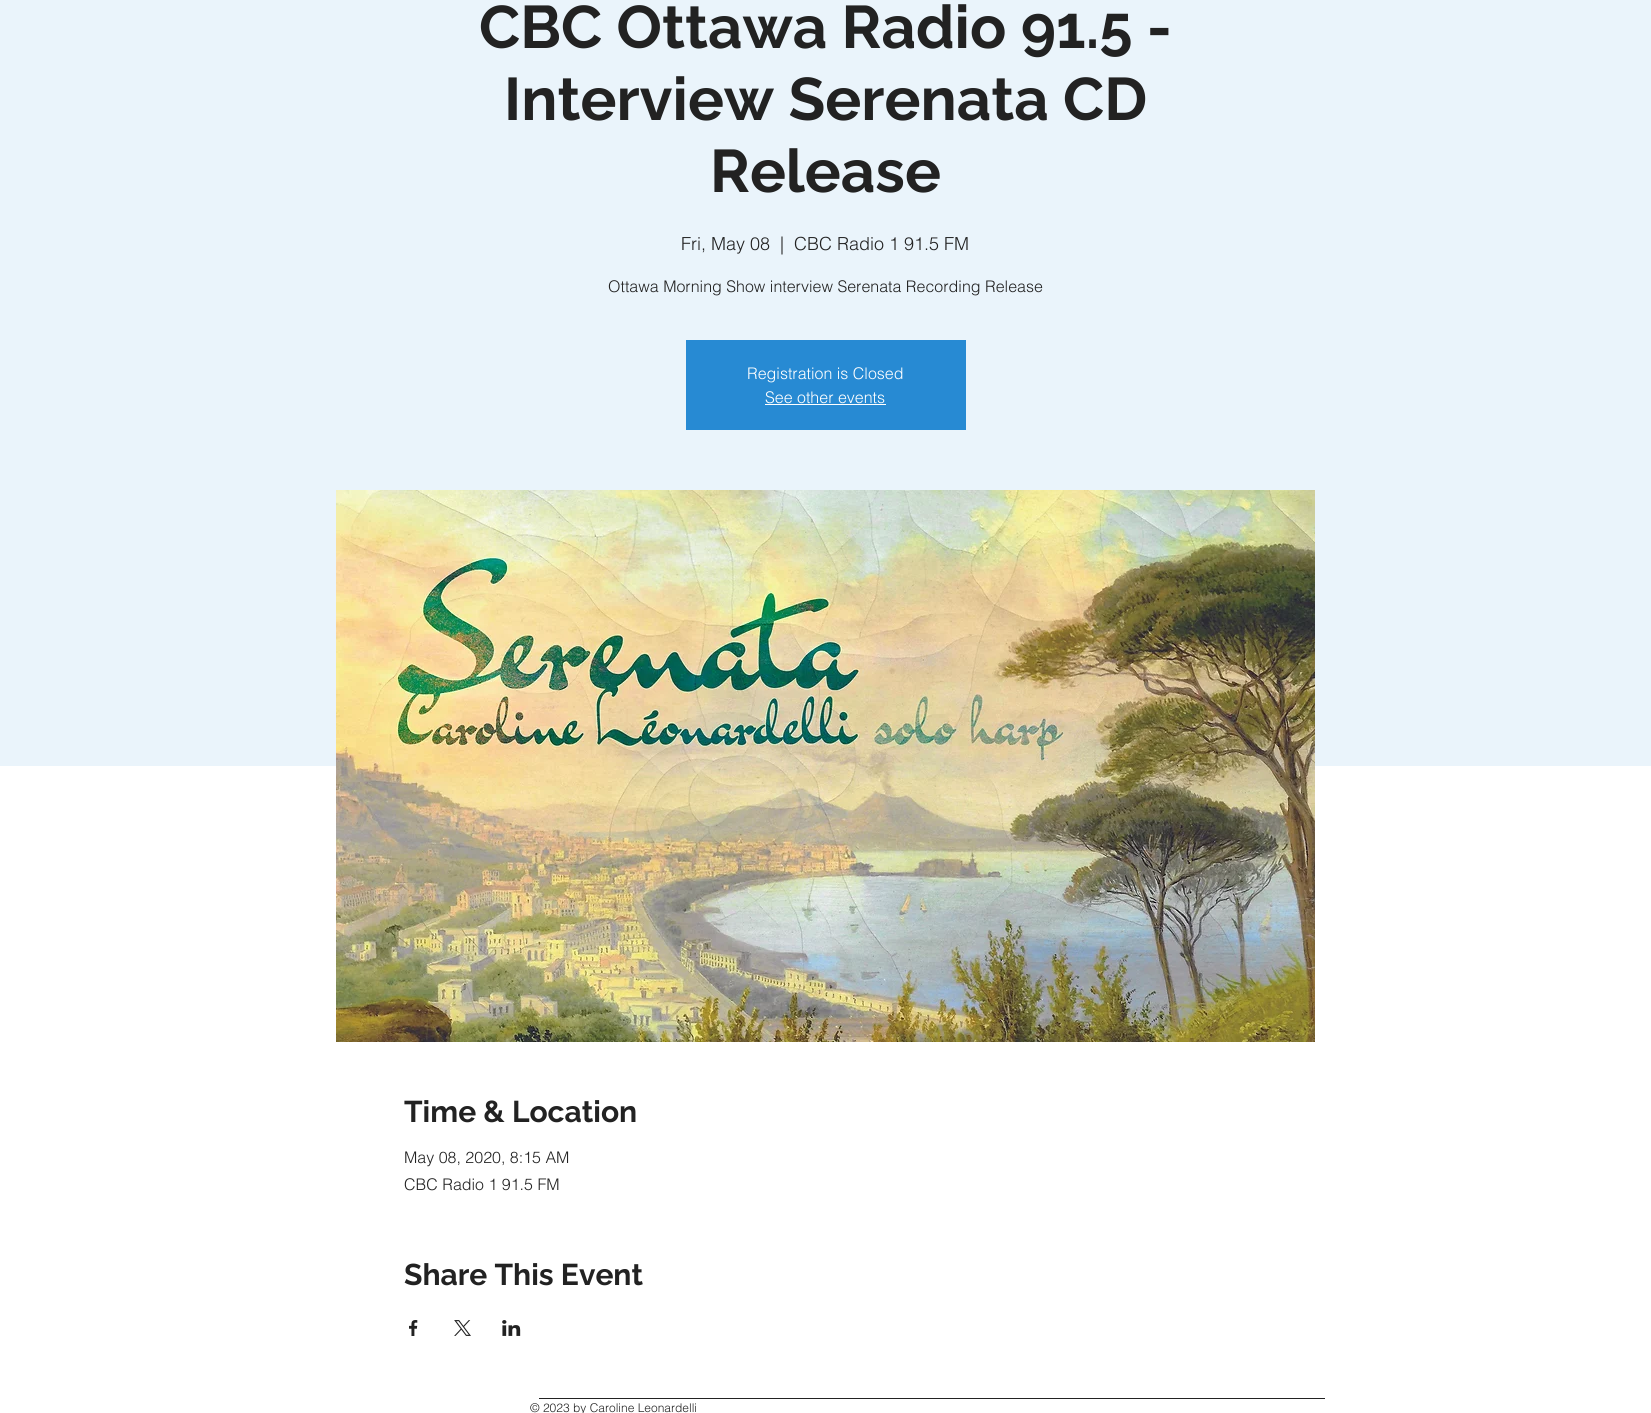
import math
import cairo



def draw_image(context, path, x, y, w, h):
    context.save()
    context.set_source_surface(cairo.ImageSurface.create_from_png(path), x, y)
    context.rectangle(x, y, w, h)
    context.fill()
    context.restore()


def draw(context):
    context.set_source_rgb(1, 1, 1)
    context.paint()
    context.set_source_rgb(234 / 255, 244 / 255, 251 / 255)
    context.rectangle(0, 0, 1651, 766)
    context.fill()
    context.set_source_rgb(39 / 255, 138 / 255, 211 / 255)
    context.rectangle(686, 340, 280, 90)
    context.fill()
    context.set_source_rgb(1, 1, 1)
    context.rectangle(765, 404, 121, 1)
    context.fill()
    draw_image(context, "images/1.png", 336, 490, 979, 552)
    draw_image(context, "images/2.png", 409, 1320, 9, 16)
    draw_image(context, "images/3.png", 454, 1320, 17, 16)
    draw_image(context, "images/4.png", 502, 1320, 19, 16)
    context.set_source_rgb(34 / 255, 34 / 255, 34 / 255)
    context.rectangle(539, 1398, 786, 1)
    context.fill()
    context.select_font_face("Raleway", cairo.FontSlant.NORMAL, cairo.FontWeight.BOLD)
    context.set_font_size(60)
    context.move_to(479, 48)
    context.show_text("CBC Ottawa Radio 91.5 -")
    context.move_to(504, 120)
    context.show_text("Interview Serenata CD")
    context.move_to(710, 192)
    context.show_text("Release")
    context.select_font_face("helvetica Light")
    context.set_font_size(18)
    context.move_to(681, 250)
    context.show_text("Fri, May 08")
    context.move_to(780, 250)
    context.show_text("|")
    context.move_to(794, 250)
    context.show_text("CBC Radio 1 91.5 FM")
    context.set_font_size(16)
    context.move_to(608, 292)
    context.show_text("Ottawa Morning Show interview Serenata Recording Release")
    context.set_source_rgb(1, 1, 1)
    context.move_to(747, 379)
    context.show_text("Registration is Closed")
    context.move_to(765, 403)
    context.show_text("See other events")
    context.select_font_face("Raleway", cairo.FontSlant.NORMAL, cairo.FontWeight.BOLD)
    context.set_font_size(30)
    context.set_source_rgb(34 / 255, 34 / 255, 34 / 255)
    context.move_to(404, 1122)
    context.show_text("Time & Location")
    context.select_font_face("helvetica Light")
    context.set_font_size(16)
    context.move_to(404, 1163)
    context.show_text("May 08, 2020, 8:15 AM")
    context.move_to(404, 1190)
    context.show_text("CBC Radio 1 91.5 FM")
    context.select_font_face("Raleway", cairo.FontSlant.NORMAL, cairo.FontWeight.BOLD)
    context.set_font_size(30)
    context.move_to(404, 1285)
    context.show_text("Share This Event")
    context.select_font_face("helvetica Light")
    context.set_font_size(12)
    context.move_to(530, 1412)
    context.show_text("© 2023 by Caroline Leonardelli")


surface = cairo.ImageSurface(cairo.Format.RGB24, 1651, 1413)
context = cairo.Context(surface)
options = cairo.FontOptions()
options.set_hint_metrics(cairo.HintMetrics.OFF)
options.set_hint_style(cairo.HintStyle.NONE)
context.set_font_options(options)
context.set_miter_limit(4)
draw(context)
surface.write_to_png("out.png")
